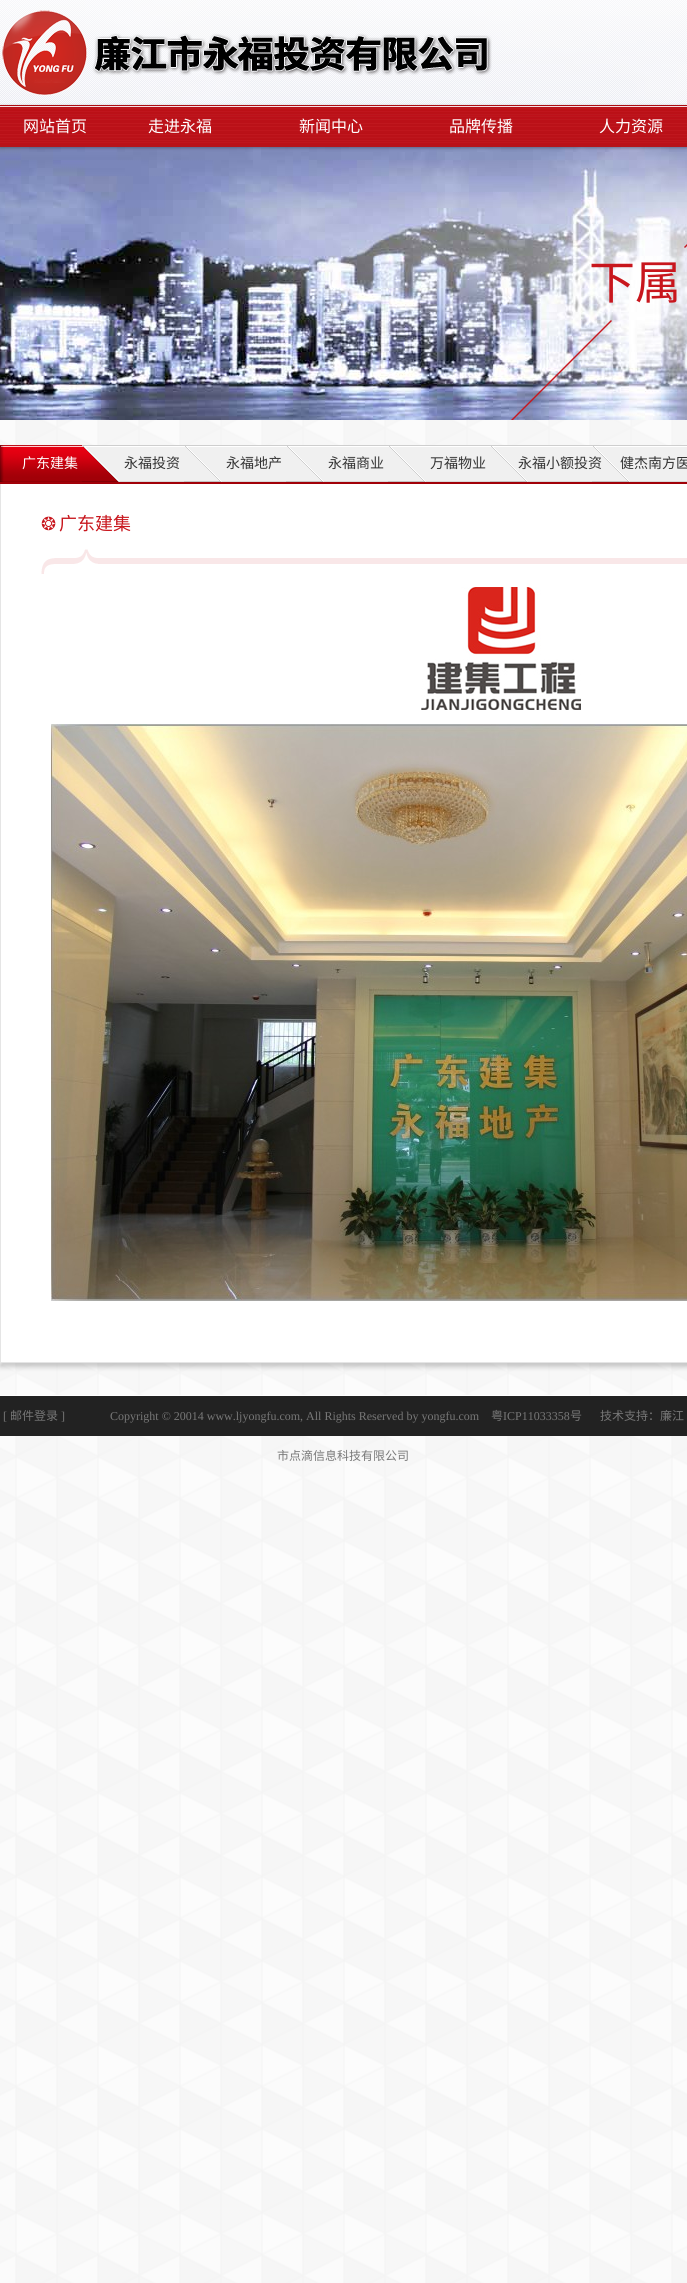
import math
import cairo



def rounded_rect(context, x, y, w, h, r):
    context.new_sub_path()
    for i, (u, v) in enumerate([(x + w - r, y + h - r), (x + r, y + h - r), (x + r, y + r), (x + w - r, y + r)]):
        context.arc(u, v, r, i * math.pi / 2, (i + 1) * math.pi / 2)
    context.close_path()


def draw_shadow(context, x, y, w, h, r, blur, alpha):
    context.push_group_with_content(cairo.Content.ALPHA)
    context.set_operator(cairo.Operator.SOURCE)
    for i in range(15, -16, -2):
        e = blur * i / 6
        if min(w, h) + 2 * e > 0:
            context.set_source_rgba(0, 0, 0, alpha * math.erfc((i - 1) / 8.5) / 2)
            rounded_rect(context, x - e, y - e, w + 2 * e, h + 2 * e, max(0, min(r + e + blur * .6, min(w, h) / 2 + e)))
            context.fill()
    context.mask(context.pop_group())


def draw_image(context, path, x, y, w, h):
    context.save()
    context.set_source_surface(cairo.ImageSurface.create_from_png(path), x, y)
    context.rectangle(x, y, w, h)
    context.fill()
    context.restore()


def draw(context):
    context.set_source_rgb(1, 1, 1)
    context.paint()
    draw_image(context, "images/1.png", 0, 420, 687, 1863)
    draw_image(context, "images/6.png", 0, 0, 687, 420)
    draw_image(context, "images/2.png", 0, 0, 687, 105)
    draw_image(context, "images/3.png", 0, 0, 687, 105)
    draw_image(context, "images/4.png", 1, 10, 491, 86)
    context.set_source_rgb(0, 0, 0)
    draw_shadow(context, 0, 106, 687, 42, 0, 1.5, 0.3)
    draw_image(context, "images/5.png", 0, 105, 687, 42)
    draw_image(context, "images/7.png", 510, 202, 177, 218)
    draw_shadow(context, 0, 488, 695, 879, 0, 2.5, 0.2)
    context.set_source_rgb(161 / 255, 0, 8 / 255)
    context.rectangle(0, 482, 687, 2)
    context.fill()
    draw_image(context, "images/8.png", 0, 445, 118, 37)
    context.set_source_rgba(0, 0, 0, 0.1)
    context.rectangle(0, 481, 120, 1)
    context.fill()
    draw_image(context, "images/9.png", 82, 445, 138, 37)
    context.rectangle(82, 481, 140, 1)
    context.fill()
    draw_image(context, "images/10.png", 185, 445, 137, 37)
    context.rectangle(184, 481, 140, 1)
    context.fill()
    draw_image(context, "images/11.png", 287, 445, 137, 37)
    context.rectangle(286, 481, 140, 1)
    context.fill()
    draw_image(context, "images/12.png", 389, 445, 137, 37)
    context.rectangle(388, 481, 140, 1)
    context.fill()
    draw_image(context, "images/13.png", 491, 445, 137, 37)
    context.rectangle(490, 481, 140, 1)
    context.fill()
    context.set_source_rgb(1, 1, 1)
    context.rectangle(1, 484, 686, 878)
    context.fill()
    context.set_source_rgb(229 / 255, 229 / 255, 229 / 255)
    context.rectangle(0, 1362, 687, 1)
    context.fill()
    context.rectangle(0, 484, 1, 879)
    context.fill()
    draw_image(context, "images/15.png", 41, 549, 646, 25)
    draw_image(context, "images/16.png", 421, 587, 160, 123)
    draw_image(context, "images/17.png", 51, 724, 636, 577)
    context.set_source_rgb(34 / 255, 34 / 255, 34 / 255)
    context.rectangle(0, 1396, 687, 40)
    context.fill()
    context.set_source_rgb(1, 1, 1)
    context.rectangle(0, 1395, 687, 1)
    context.fill()
    context.select_font_face("Noto Sans CJK SC")
    context.set_font_size(16)
    context.move_to(23, 132)
    context.show_text("网站首页")
    context.move_to(148, 132)
    context.show_text("走进永福")
    context.move_to(299, 132)
    context.show_text("新闻中心")
    context.move_to(449, 132)
    context.show_text("品牌传播")
    context.move_to(599, 132)
    context.show_text("人力资源")
    context.set_font_size(46)
    context.set_source_rgb(200 / 255, 22 / 255, 29 / 255)
    context.move_to(589, 299)
    context.show_text("下属")
    context.set_font_size(14)
    context.set_source_rgb(1, 1, 1)
    context.move_to(22, 468)
    context.show_text("广东建集")
    context.set_source_rgb(51 / 255, 51 / 255, 51 / 255)
    context.move_to(124, 468)
    context.show_text("永福投资")
    context.move_to(226, 468)
    context.show_text("永福地产")
    context.move_to(328, 468)
    context.show_text("永福商业")
    context.move_to(430, 468)
    context.show_text("万福物业")
    context.move_to(518, 468)
    context.show_text("永福小额投资")
    draw_image(context, "images/14.png", 593, 445, 94, 37)
    context.set_source_rgba(0, 0, 0, 0.1)
    context.rectangle(592, 481, 95, 1)
    context.fill()
    context.set_source_rgb(51 / 255, 51 / 255, 51 / 255)
    context.move_to(620, 468)
    context.show_text("健杰南方医")
    context.select_font_face("DejaVu Sans")
    context.set_font_size(18)
    context.set_source_rgb(200 / 255, 22 / 255, 29 / 255)
    context.move_to(41, 530)
    context.show_text("❂")
    context.select_font_face("Noto Sans CJK SC")
    context.move_to(59, 530)
    context.show_text("广东建集")
    context.select_font_face("Liberation Serif")
    context.set_font_size(12)
    context.set_source_rgb(119 / 255, 119 / 255, 119 / 255)
    context.move_to(3, 1420)
    context.show_text("[")
    context.select_font_face("Noto Sans CJK SC")
    context.move_to(10, 1420)
    context.show_text("邮件登录")
    context.select_font_face("Liberation Serif")
    context.move_to(61, 1420)
    context.show_text("]               Copyright © 20014 www.ljyongfu.com, All Rights Reserved by yongfu.com")
    context.select_font_face("Noto Sans CJK SC")
    context.move_to(491, 1420)
    context.show_text("粤")
    context.select_font_face("Liberation Serif")
    context.move_to(503, 1420)
    context.show_text("ICP11033358")
    context.select_font_face("Noto Sans CJK SC")
    context.move_to(570, 1420)
    context.show_text("号")
    context.move_to(600, 1420)
    context.show_text("技术支持：廉江")
    context.move_to(277, 1460)
    context.show_text("市点滴信息科技有限公司")


surface = cairo.ImageSurface(cairo.Format.RGB24, 687, 2283)
context = cairo.Context(surface)
options = cairo.FontOptions()
options.set_hint_metrics(cairo.HintMetrics.OFF)
options.set_hint_style(cairo.HintStyle.NONE)
context.set_font_options(options)
context.set_miter_limit(4)
draw(context)
surface.write_to_png("out.png")
